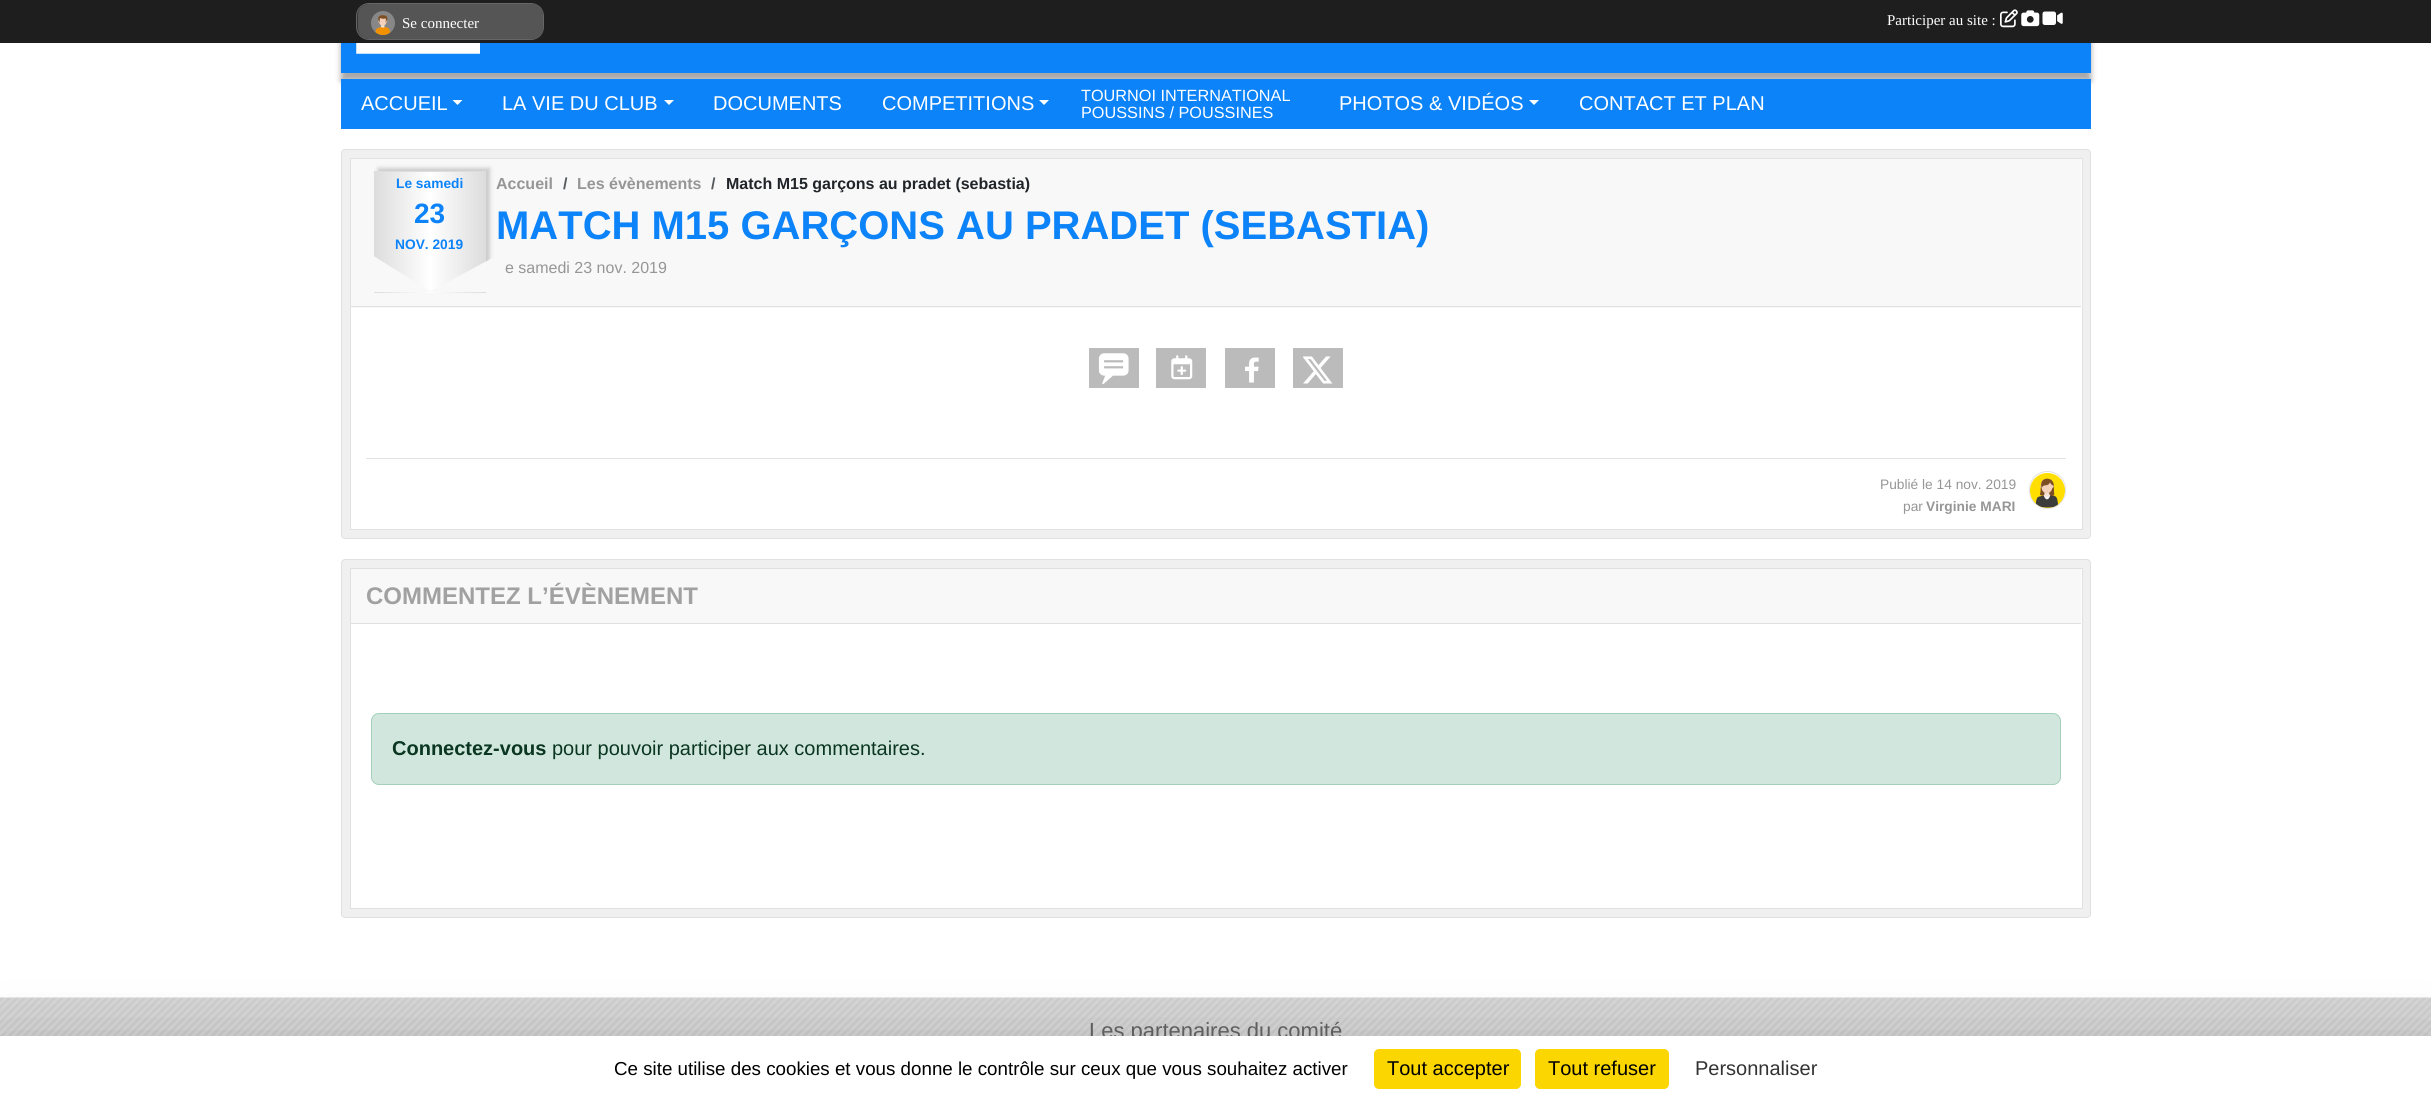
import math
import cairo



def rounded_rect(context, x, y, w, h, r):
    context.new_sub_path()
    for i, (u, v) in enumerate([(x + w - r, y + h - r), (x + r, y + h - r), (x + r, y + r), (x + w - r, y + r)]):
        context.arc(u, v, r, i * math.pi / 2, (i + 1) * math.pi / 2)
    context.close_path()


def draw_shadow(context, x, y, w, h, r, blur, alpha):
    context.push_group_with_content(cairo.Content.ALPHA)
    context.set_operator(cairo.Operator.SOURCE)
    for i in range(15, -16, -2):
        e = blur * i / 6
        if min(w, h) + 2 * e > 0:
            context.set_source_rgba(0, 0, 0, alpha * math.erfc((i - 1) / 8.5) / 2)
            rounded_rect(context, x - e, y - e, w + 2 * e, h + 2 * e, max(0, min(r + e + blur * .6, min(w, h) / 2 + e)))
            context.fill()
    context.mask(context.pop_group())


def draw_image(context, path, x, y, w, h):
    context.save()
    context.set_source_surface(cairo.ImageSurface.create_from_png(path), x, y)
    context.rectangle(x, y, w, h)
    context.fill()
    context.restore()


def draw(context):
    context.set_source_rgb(1, 1, 1)
    context.paint()
    context.set_source_rgb(80 / 255, 80 / 255, 80 / 255)
    draw_shadow(context, 341, -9, 1750, 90, 0, 3, 0.5)
    context.set_source_rgb(30 / 255, 30 / 255, 30 / 255)
    context.rectangle(0, 0, 2431, 43)
    context.fill()
    context.set_source_rgb(51 / 255, 51 / 255, 51 / 255)
    rounded_rect(context, 356.5, 3.5, 187, 36, 12.5)
    context.fill_preserve()
    context.set_source_rgb(102 / 255, 102 / 255, 102 / 255)
    context.set_line_width(1)
    context.stroke()
    context.set_source_rgb(85 / 255, 85 / 255, 85 / 255)
    rounded_rect(context, 358, 4, 185, 35, 11)
    context.fill()
    draw_image(context, "images/1.png", 371, 11, 24, 24)
    draw_image(context, "images/2.png", 2000, 9, 18, 19)
    draw_image(context, "images/3.png", 2021, 10, 19, 17)
    draw_image(context, "images/4.png", 2042, 11, 21, 14)
    context.set_source_rgb(12 / 255, 131 / 255, 248 / 255)
    context.rectangle(341, 43, 1750, 30)
    context.fill()
    draw_image(context, "images/5.png", 356, 43, 124, 11)
    context.rectangle(341, 79, 1750, 50)
    context.fill()
    context.set_source_rgb(1, 1, 1)
    context.new_path()
    context.move_to(452.5, 100)
    context.line_to(462.5, 100)
    context.line_to(457.5, 105)
    context.close_path()
    context.fill()
    context.new_path()
    context.move_to(664, 100)
    context.line_to(674, 100)
    context.line_to(669, 105)
    context.close_path()
    context.fill()
    context.new_path()
    context.move_to(1039, 100)
    context.line_to(1049, 100)
    context.line_to(1044, 105)
    context.close_path()
    context.fill()
    context.new_path()
    context.move_to(1529, 100)
    context.line_to(1539, 100)
    context.line_to(1534, 105)
    context.close_path()
    context.fill()
    context.set_source_rgb(240 / 255, 240 / 255, 240 / 255)
    rounded_rect(context, 341.5, 149.5, 1749, 389, 3.5)
    context.fill_preserve()
    context.set_source_rgb(225 / 255, 225 / 255, 225 / 255)
    context.stroke()
    context.set_source_rgb(1, 1, 1)
    context.rectangle(350.5, 158.5, 1732, 371)
    context.fill_preserve()
    context.set_source_rgb(225 / 255, 225 / 255, 225 / 255)
    context.stroke()
    context.set_source_rgb(248 / 255, 248 / 255, 248 / 255)
    context.rectangle(351, 159, 1730, 149)
    context.fill()
    context.set_source_rgb(225 / 255, 225 / 255, 225 / 255)
    context.rectangle(351, 306, 1730, 1)
    context.fill()
    context.set_source_rgb(204 / 255, 204 / 255, 204 / 255)
    draw_shadow(context, 378, 168, 112, 121, 0, 2, 1)
    gradient = cairo.LinearGradient(265, 233, 375, 233)
    gradient.add_color_stop_rgba(0, 221 / 255, 221 / 255, 221 / 255, 1)
    gradient.add_color_stop_rgba(0.5, 1, 1, 1, 1)
    gradient.add_color_stop_rgba(1, 221 / 255, 221 / 255, 221 / 255, 1)
    context.set_source(gradient)
    context.rectangle(374, 171, 1, 122)
    context.fill()
    gradient = cairo.LinearGradient(375, 233, 485, 233)
    gradient.add_color_stop_rgba(0, 221 / 255, 221 / 255, 221 / 255, 1)
    gradient.add_color_stop_rgba(0.5, 1, 1, 1, 1)
    gradient.add_color_stop_rgba(1, 221 / 255, 221 / 255, 221 / 255, 1)
    context.set_source(gradient)
    context.rectangle(375, 172, 110, 121)
    context.fill()
    gradient = cairo.LinearGradient(485, 233, 595, 233)
    gradient.add_color_stop_rgba(0, 221 / 255, 221 / 255, 221 / 255, 1)
    gradient.add_color_stop_rgba(0.5, 1, 1, 1, 1)
    gradient.add_color_stop_rgba(1, 221 / 255, 221 / 255, 221 / 255, 1)
    context.set_source(gradient)
    context.rectangle(485, 171, 1, 122)
    context.fill()
    context.set_source_rgb(221 / 255, 221 / 255, 221 / 255)
    context.rectangle(374, 171, 112, 1)
    context.fill()
    context.set_source_rgb(248 / 255, 248 / 255, 248 / 255)
    context.new_path()
    context.move_to(372, 292)
    context.line_to(372, 255)
    context.line_to(431, 292)
    context.close_path()
    context.fill()
    context.new_path()
    context.move_to(498, 255)
    context.line_to(498, 292)
    context.line_to(429, 292)
    context.close_path()
    context.fill()
    context.set_source_rgb(187 / 255, 187 / 255, 187 / 255)
    context.rectangle(1089, 348, 50, 40)
    context.fill()
    draw_image(context, "images/6.png", 1098, 353, 31, 32)
    context.rectangle(1156, 348, 50, 40)
    context.fill()
    draw_image(context, "images/7.png", 1171, 355, 22, 25)
    context.rectangle(1225, 348, 50, 40)
    context.fill()
    draw_image(context, "images/8.png", 1245, 357, 14, 26)
    context.rectangle(1293, 348, 50, 40)
    context.fill()
    draw_image(context, "images/9.png", 1303, 356, 30, 28)
    context.set_source_rgb(225 / 255, 225 / 255, 225 / 255)
    context.rectangle(366, 458, 1700, 1)
    context.fill()
    rounded_rect(context, 2029.5, 471.5, 36, 37, 18)
    context.stroke()
    draw_image(context, "images/10.png", 2030, 473, 35, 35)
    context.set_source_rgb(240 / 255, 240 / 255, 240 / 255)
    rounded_rect(context, 341.5, 559.5, 1749, 358, 3.5)
    context.fill_preserve()
    context.set_source_rgb(225 / 255, 225 / 255, 225 / 255)
    context.stroke()
    context.set_source_rgb(1, 1, 1)
    context.rectangle(350.5, 568.5, 1732, 340)
    context.fill_preserve()
    context.set_source_rgb(225 / 255, 225 / 255, 225 / 255)
    context.stroke()
    context.set_source_rgb(248 / 255, 248 / 255, 248 / 255)
    context.rectangle(351, 569, 1730, 54)
    context.fill()
    context.set_source_rgb(225 / 255, 225 / 255, 225 / 255)
    context.rectangle(351, 623, 1730, 1)
    context.fill()
    context.set_source_rgb(209 / 255, 231 / 255, 221 / 255)
    rounded_rect(context, 371.5, 713.5, 1689, 71, 7.5)
    context.fill_preserve()
    context.set_source_rgb(163 / 255, 207 / 255, 187 / 255)
    context.stroke()
    draw_image(context, "images/11.png", 0, 997, 2431, 39)
    context.set_source_rgb(0, 0, 0)
    draw_shadow(context, 0, 1061, 2431, 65, 0, 37.5, 0.25)
    context.save()
    context.rectangle(403, 5, 133, 35)
    context.clip()
    context.select_font_face("Liberation Serif")
    context.set_font_size(15)
    context.set_source_rgb(1, 1, 1)
    context.move_to(402, 28)
    context.show_text("Se connecter")
    context.restore()
    context.select_font_face("Liberation Serif")
    context.set_font_size(15)
    context.set_source_rgb(1, 1, 1)
    context.move_to(1887, 25)
    context.show_text("Participer au site :")
    context.select_font_face("Liberation Sans")
    context.set_font_size(20)
    context.move_to(361, 110)
    context.show_text("ACCUEIL")
    context.move_to(502, 110)
    context.show_text("LA VIE DU CLUB")
    context.move_to(713, 110)
    context.show_text("DOCUMENTS")
    context.move_to(882, 110)
    context.show_text("COMPETITIONS")
    context.set_font_size(16.25)
    context.move_to(1081, 101)
    context.show_text("TOURNOI INTERNATIONAL")
    context.move_to(1081, 118)
    context.show_text("POUSSINS / POUSSINES")
    context.set_font_size(20)
    context.move_to(1339, 110)
    context.show_text("PHOTOS & VIDÉOS")
    context.move_to(1579, 110)
    context.show_text("CONTACT ET PLAN")
    context.select_font_face("Liberation Sans", cairo.FontSlant.NORMAL, cairo.FontWeight.BOLD)
    context.set_font_size(13.75)
    context.set_source_rgb(12 / 255, 131 / 255, 248 / 255)
    context.move_to(396, 188)
    context.show_text("Le samedi")
    context.set_font_size(28)
    context.move_to(414, 223)
    context.show_text("23")
    context.set_font_size(13.75)
    context.move_to(395, 249)
    context.show_text("NOV. 2019")
    context.set_font_size(16)
    context.set_source_rgb(150 / 255, 150 / 255, 150 / 255)
    context.move_to(496, 189)
    context.show_text("Accueil")
    context.set_source_rgb(87 / 255, 90 / 255, 93 / 255)
    context.move_to(563, 189)
    context.show_text("/")
    context.set_source_rgb(150 / 255, 150 / 255, 150 / 255)
    context.move_to(577, 189)
    context.show_text("Les évènements")
    context.set_source_rgb(87 / 255, 90 / 255, 93 / 255)
    context.move_to(711, 189)
    context.show_text("/")
    context.set_source_rgb(33 / 255, 37 / 255, 41 / 255)
    context.move_to(726, 189)
    context.show_text("Match M15 garçons au pradet (sebastia)")
    context.set_font_size(40)
    context.set_source_rgb(12 / 255, 131 / 255, 248 / 255)
    context.move_to(496, 239)
    context.show_text("MATCH M15 GARÇONS AU PRADET (SEBASTIA)")
    context.select_font_face("Liberation Sans")
    context.set_font_size(16)
    context.set_source_rgb(150 / 255, 150 / 255, 150 / 255)
    context.move_to(505, 273)
    context.show_text("e samedi 23 nov. 2019")
    context.set_font_size(13.75)
    context.move_to(1880, 489)
    context.show_text("Publié le 14 nov. 2019")
    context.move_to(1903, 511)
    context.show_text("par")
    context.select_font_face("Liberation Sans", cairo.FontSlant.NORMAL, cairo.FontWeight.BOLD)
    context.move_to(1926, 511)
    context.show_text("Virginie MARI")
    context.set_font_size(24)
    context.set_source_rgb(161 / 255, 161 / 255, 161 / 255)
    context.move_to(366, 604)
    context.show_text("COMMENTEZ L’ÉVÈNEMENT")
    context.set_font_size(20)
    context.set_source_rgb(10 / 255, 54 / 255, 34 / 255)
    context.move_to(392, 755)
    context.show_text("Connectez-vous")
    context.select_font_face("Liberation Sans")
    context.move_to(552, 755)
    context.show_text("pour pouvoir participer aux commentaires.")
    context.set_font_size(22)
    context.set_source_rgb(94 / 255, 94 / 255, 94 / 255)
    context.move_to(1089, 1038)
    context.show_text("Les partenaires du comité")
    context.set_source_rgb(1, 1, 1)
    context.rectangle(0, 1036, 2431, 65)
    context.fill()
    context.set_font_size(18.75)
    context.set_source_rgb(0, 0, 0)
    context.move_to(614, 1075)
    context.show_text("Ce site utilise des cookies et vous donne le contrôle sur ceux que vous souhaitez activer")
    context.set_source_rgb(251 / 255, 214 / 255, 0)
    rounded_rect(context, 1374, 1049, 147, 40, 5)
    context.fill()
    context.set_font_size(20)
    context.set_source_rgb(0, 0, 0)
    context.move_to(1387, 1075)
    context.show_text("Tout accepter")
    context.set_source_rgb(251 / 255, 214 / 255, 0)
    rounded_rect(context, 1535, 1049, 134, 40, 5)
    context.fill()
    context.set_source_rgb(0, 0, 0)
    context.move_to(1548, 1075)
    context.show_text("Tout refuser")
    context.set_source_rgb(51 / 255, 51 / 255, 51 / 255)
    context.move_to(1695, 1075)
    context.show_text("Personnaliser")


surface = cairo.ImageSurface(cairo.Format.RGB24, 2431, 1101)
context = cairo.Context(surface)
options = cairo.FontOptions()
options.set_hint_metrics(cairo.HintMetrics.OFF)
options.set_hint_style(cairo.HintStyle.NONE)
context.set_font_options(options)
context.set_miter_limit(4)
draw(context)
surface.write_to_png("out.png")
